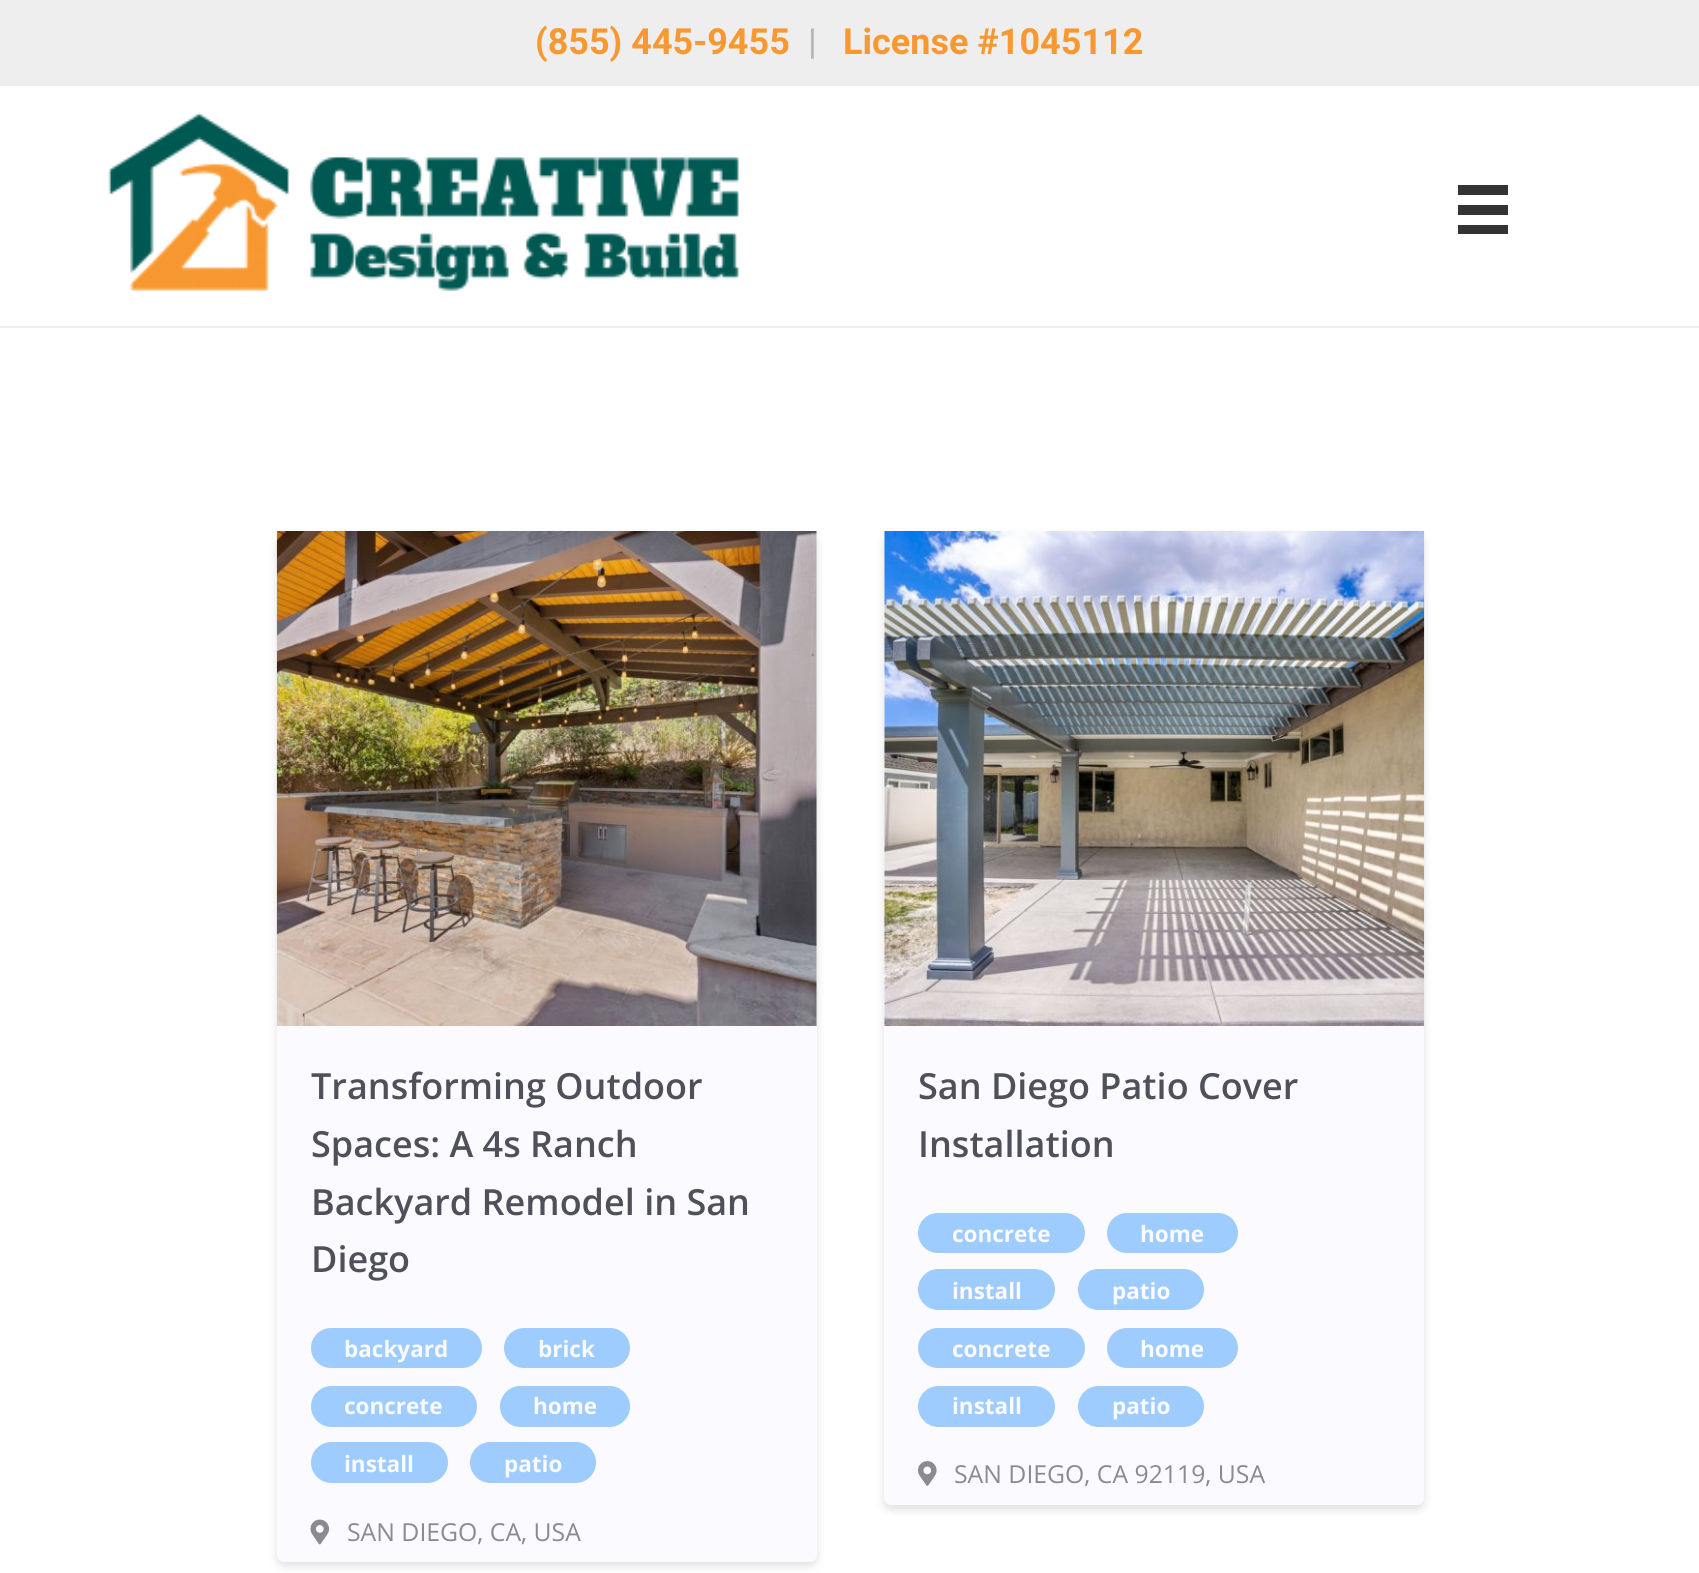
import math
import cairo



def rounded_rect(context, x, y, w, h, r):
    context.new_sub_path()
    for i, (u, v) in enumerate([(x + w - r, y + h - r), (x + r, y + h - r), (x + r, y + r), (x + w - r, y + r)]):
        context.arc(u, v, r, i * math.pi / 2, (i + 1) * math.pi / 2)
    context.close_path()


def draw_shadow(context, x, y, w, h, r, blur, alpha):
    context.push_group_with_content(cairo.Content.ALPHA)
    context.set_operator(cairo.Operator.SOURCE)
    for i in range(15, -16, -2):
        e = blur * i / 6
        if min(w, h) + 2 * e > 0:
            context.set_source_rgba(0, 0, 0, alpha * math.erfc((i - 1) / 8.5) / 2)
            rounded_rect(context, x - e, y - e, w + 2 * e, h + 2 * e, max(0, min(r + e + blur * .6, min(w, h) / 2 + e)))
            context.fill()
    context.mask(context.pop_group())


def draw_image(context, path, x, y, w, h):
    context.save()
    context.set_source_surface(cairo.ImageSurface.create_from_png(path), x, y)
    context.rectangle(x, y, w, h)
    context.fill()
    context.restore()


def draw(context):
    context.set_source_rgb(1, 1, 1)
    context.paint()
    context.set_source_rgb(238 / 255, 238 / 255, 238 / 255)
    context.rectangle(0, 0, 1699, 86)
    context.fill()
    context.rectangle(0, 326, 1699, 2)
    context.fill()
    draw_image(context, "images/1.png", 107, 112, 632, 179)
    context.set_source_rgb(51 / 255, 51 / 255, 51 / 255)
    context.rectangle(1458, 185, 50, 10)
    context.fill()
    context.rectangle(1458, 205, 50, 10)
    context.fill()
    context.rectangle(1458, 225, 50, 9)
    context.fill()
    context.set_source_rgb(50 / 255, 50 / 255, 60 / 255)
    draw_shadow(context, 277, 536, 540, 1030, 7, 4.5, 0.15)
    context.set_source_rgb(250 / 255, 250 / 255, 1)
    rounded_rect(context, 277, 531, 540, 1031, 7)
    context.fill()
    draw_image(context, "images/2.png", 276, 531, 541, 495)
    context.set_source_rgb(159 / 255, 204 / 255, 1)
    rounded_rect(context, 311, 1328, 171, 40, 20)
    context.fill()
    rounded_rect(context, 504, 1328, 126, 40, 20)
    context.fill()
    rounded_rect(context, 311, 1386, 166, 41, 20.5)
    context.fill()
    rounded_rect(context, 500, 1386, 130, 41, 20.5)
    context.fill()
    rounded_rect(context, 311, 1442, 137, 41, 20.5)
    context.fill()
    rounded_rect(context, 470, 1442, 126, 41, 20.5)
    context.fill()
    draw_image(context, "images/3.png", 310, 1519, 19, 26)
    context.set_source_rgb(50 / 255, 50 / 255, 60 / 255)
    draw_shadow(context, 884, 536, 540, 974, 7, 4.5, 0.15)
    context.set_source_rgb(250 / 255, 250 / 255, 1)
    rounded_rect(context, 884, 531, 540, 974, 7)
    context.fill()
    draw_image(context, "images/4.png", 884, 531, 541, 495)
    context.set_source_rgb(159 / 255, 204 / 255, 1)
    rounded_rect(context, 918, 1213, 167, 40, 20)
    context.fill()
    rounded_rect(context, 1107, 1213, 131, 40, 20)
    context.fill()
    rounded_rect(context, 918, 1269, 137, 41, 20.5)
    context.fill()
    rounded_rect(context, 1078, 1269, 126, 41, 20.5)
    context.fill()
    rounded_rect(context, 918, 1328, 167, 40, 20)
    context.fill()
    rounded_rect(context, 1107, 1328, 131, 40, 20)
    context.fill()
    rounded_rect(context, 918, 1386, 137, 41, 20.5)
    context.fill()
    rounded_rect(context, 1078, 1386, 126, 41, 20.5)
    context.fill()
    draw_image(context, "images/5.png", 918, 1461, 19, 25)
    context.select_font_face("Roboto", cairo.FontSlant.NORMAL, cairo.FontWeight.BOLD)
    context.set_font_size(36)
    context.set_source_rgb(248 / 255, 152 / 255, 49 / 255)
    context.move_to(535, 54)
    context.show_text("(855) 445-9455")
    context.select_font_face("Roboto")
    context.set_source_rgb(178 / 255, 178 / 255, 178 / 255)
    context.move_to(808, 54)
    context.show_text("|")
    context.select_font_face("Roboto", cairo.FontSlant.NORMAL, cairo.FontWeight.BOLD)
    context.set_source_rgb(248 / 255, 152 / 255, 49 / 255)
    context.move_to(843, 54)
    context.show_text("License #1045112")
    context.select_font_face("Open Sans SemiBold")
    context.set_source_rgb(80 / 255, 80 / 255, 90 / 255)
    context.move_to(311, 1099)
    context.show_text("Transforming Outdoor")
    context.move_to(311, 1157)
    context.show_text("Spaces: A 4s Ranch")
    context.move_to(311, 1215)
    context.show_text("Backyard Remodel in San")
    context.move_to(311, 1272)
    context.show_text("Diego")
    context.select_font_face("Open Sans", cairo.FontSlant.NORMAL, cairo.FontWeight.BOLD)
    context.set_font_size(22.5)
    context.set_source_rgb(250 / 255, 250 / 255, 1)
    context.move_to(344, 1357)
    context.show_text("backyard")
    context.move_to(538, 1357)
    context.show_text("brick")
    context.move_to(344, 1414)
    context.show_text("concrete")
    context.move_to(533, 1414)
    context.show_text("home")
    context.move_to(344, 1472)
    context.show_text("install")
    context.move_to(504, 1472)
    context.show_text("patio")
    context.select_font_face("Open Sans")
    context.set_font_size(24.75)
    context.set_source_rgb(138 / 255, 138 / 255, 147 / 255)
    context.move_to(347, 1541)
    context.show_text("SAN DIEGO, CA, USA")
    context.select_font_face("Open Sans SemiBold")
    context.set_font_size(36)
    context.set_source_rgb(80 / 255, 80 / 255, 90 / 255)
    context.move_to(918, 1099)
    context.show_text("San Diego Patio Cover")
    context.move_to(918, 1157)
    context.show_text("Installation")
    context.select_font_face("Open Sans", cairo.FontSlant.NORMAL, cairo.FontWeight.BOLD)
    context.set_font_size(22.5)
    context.set_source_rgb(250 / 255, 250 / 255, 1)
    context.move_to(952, 1242)
    context.show_text("concrete")
    context.move_to(1140, 1242)
    context.show_text("home")
    context.move_to(952, 1299)
    context.show_text("install")
    context.move_to(1112, 1299)
    context.show_text("patio")
    context.move_to(952, 1357)
    context.show_text("concrete")
    context.move_to(1140, 1357)
    context.show_text("home")
    context.move_to(952, 1414)
    context.show_text("install")
    context.move_to(1112, 1414)
    context.show_text("patio")
    context.select_font_face("Open Sans")
    context.set_font_size(24.75)
    context.set_source_rgb(138 / 255, 138 / 255, 147 / 255)
    context.move_to(954, 1483)
    context.show_text("SAN DIEGO, CA 92119, USA")


surface = cairo.ImageSurface(cairo.Format.RGB24, 1699, 1573)
context = cairo.Context(surface)
options = cairo.FontOptions()
options.set_hint_metrics(cairo.HintMetrics.OFF)
options.set_hint_style(cairo.HintStyle.NONE)
context.set_font_options(options)
context.set_miter_limit(4)
draw(context)
surface.write_to_png("out.png")
